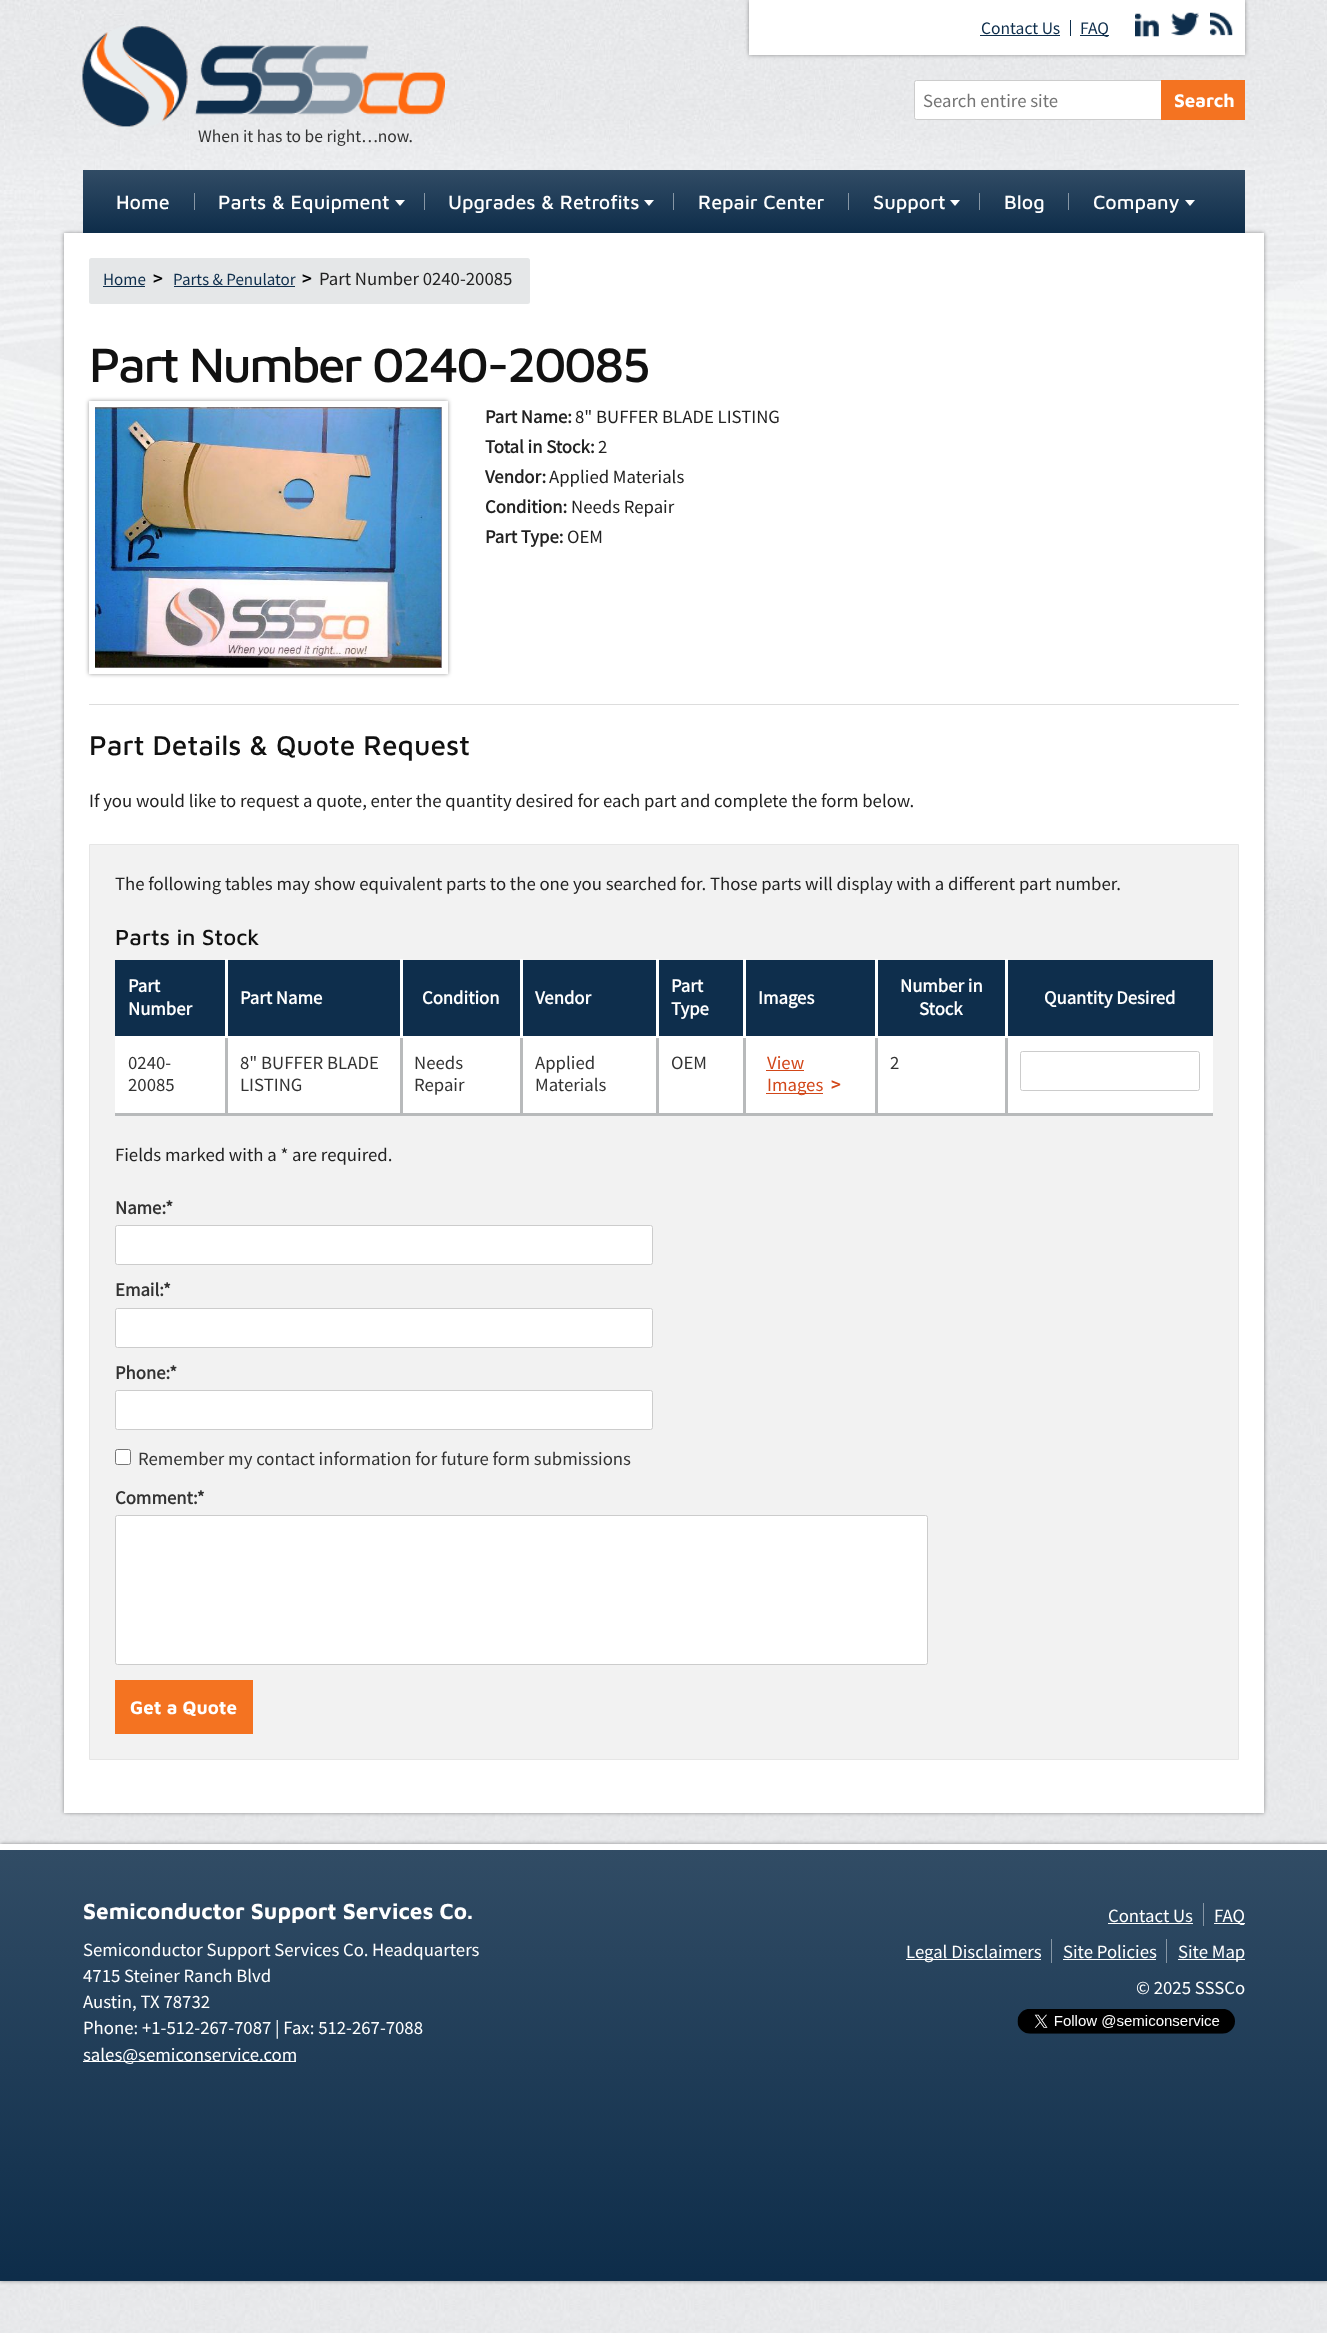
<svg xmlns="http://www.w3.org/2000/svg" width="1327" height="2333">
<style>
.a{font:17.5px Source Sans Pro;fill:#0e2e4c}
.b{font:18.75px Source Sans Pro;fill:#757575}
.c{font:bold 18.75px Maven Pro;fill:#fff}
.d{font:17.5px Source Sans Pro;fill:#333}
.e{font:500 19.75px Maven Pro;fill:#fff}
.f{font:17px Source Sans Pro;fill:#0e2e4c}
.g{font:bold 18.75px Source Sans Pro;fill:#000}
.h{font:18.75px Source Sans Pro;fill:#222}
.i{font:500 49.75px Maven Pro;letter-spacing:-2.5px;fill:#111}
.j{font:bold 18.75px Source Sans Pro;fill:#222}
.k{font:500 28.1px Maven Pro;fill:#111}
.l{font:500 22.5px Maven Pro;fill:#111}
.m{font:bold 18.75px Source Sans Pro;fill:#fff}
.n{font:18.75px Source Sans Pro;fill:#333}
.o{font:18.75px Source Sans Pro;fill:#d24719}
.p{font:bold 18.75px Source Sans Pro;fill:#d24719}
.q{font:bold 18.75px Source Sans Pro;fill:#333}
.r{font:bold 22.5px Maven Pro;fill:#fff}
.s{font:18.75px Source Sans Pro;fill:#fff}
</style>
<defs>
<linearGradient id="g1" gradientUnits="userSpaceOnUse" x1="664" y1="170" x2="664" y2="233"><stop offset="0" stop-color="#314c65"/><stop offset="0.99" stop-color="#0e2d4a"/></linearGradient>
<linearGradient id="g2" gradientUnits="userSpaceOnUse" x1="664" y1="1850" x2="664" y2="2281"><stop offset="0" stop-color="#314c65"/><stop offset="0.99" stop-color="#0e2d4a"/></linearGradient>
</defs>
<rect width="100%" height="100%" fill="#fff"/>
<image href="1.png" x="0" y="918" width="1327" height="1415"/>
<image href="2.png" x="0" y="0" width="1327" height="919"/>
<path fill="#00000066" filter="blur(2px)" d="M749 0h496v55H749z"/>
<path fill="#fff" d="M749 0h496v55H749z"/>
<path fill="#0e2e4c" d="M980 35h80v1H980z"/>
<path fill="#0e2e4c" d="M1070 20h1v16H1070z"/>
<path fill="#0e2e4c" d="M1080 35h29v1H1080z"/>
<image href="3.png" x="1135" y="13" width="24" height="24"/>
<image href="4.png" x="1171" y="12" width="28" height="24"/>
<image href="5.png" x="1210" y="12" width="23" height="24"/>
<rect fill="#fff" stroke="#ccc" x="914.5" y="80.5" width="249" height="39" rx="2"/>
<path fill="#f47321" d="M1161 80h84v40H1161z"/>
<image href="6.png" x="82" y="25" width="363" height="103"/>
<path fill="#00000066" filter="blur(2px)" d="M64 233h1200v1580H64z"/>
<path fill="url(#g1)" d="M83 170h1162v63H83z"/>
<path fill="#8696a5" d="M194 193h1v17H194z"/>
<path fill="#fff" d="M395 200h10l-5 6z"/>
<path fill="#8696a5" d="M424 193h1v17H424z"/>
<path fill="#fff" d="M644 200h10l-5 6z"/>
<path fill="#8696a5" d="M673 193h1v17H673z"/>
<path fill="#8696a5" d="M848 193h1v17H848z"/>
<path fill="#fff" d="M950 200h10l-5 6z"/>
<path fill="#8696a5" d="M979 193h1v17H979z"/>
<path fill="#8696a5" d="M1068 193h1v17H1068z"/>
<path fill="#fff" d="M1185 200h10l-5 6z"/>
<path fill="#fff" d="M64 233h1200v1580H64z"/>
<rect fill="#e5e7e8" x="89" y="258" width="441" height="46" rx="2.5"/>
<path fill="#0e2e4c" d="M103 286h42v1H103z"/>
<path fill="#0e2e4c" d="M174 286h121v1H174z"/>
<path fill="#00000066" filter="blur(2px)" d="M89 401h359v273H89z"/>
<path fill="none" stroke="#fff" stroke-width="6" d="M92 404h353v267H92z"/>
<image href="7.png" x="95" y="407" width="347" height="261"/>
<path fill="#ddd" d="M89 704h1150v1H89z"/>
<path fill="#f2f2f2" stroke="#e6e6e6" d="M89.5 844.5h1149v915H89.5z"/>
<rect fill="#fff" x="115" y="960" width="1098" height="155" rx="4"/>
<path fill="#b8babb" d="M115 1113h1098v3H115z"/>
<path fill="#0e2e4c" d="M115 960h110v76H115z"/>
<path fill="#b8babb" d="M225 1035h3v80H225z"/>
<path fill="#fff" d="M225 959h3v79H225z"/>
<path fill="#0e2e4c" d="M228 960h172v76H228z"/>
<path fill="#b8babb" d="M400 1035h3v80H400z"/>
<path fill="#fff" d="M400 959h3v79H400z"/>
<path fill="#0e2e4c" d="M403 960h117v76H403z"/>
<path fill="#b8babb" d="M520 1035h3v80H520z"/>
<path fill="#fff" d="M520 959h3v79H520z"/>
<path fill="#0e2e4c" d="M523 960h133v76H523z"/>
<path fill="#b8babb" d="M656 1035h3v80H656z"/>
<path fill="#fff" d="M656 959h3v79H656z"/>
<path fill="#0e2e4c" d="M659 960h84v76H659z"/>
<path fill="#b8babb" d="M743 1035h3v80H743z"/>
<path fill="#fff" d="M743 959h3v79H743z"/>
<path fill="#0e2e4c" d="M746 960h129v76H746z"/>
<path fill="#b8babb" d="M875 1035h3v80H875z"/>
<path fill="#fff" d="M875 959h3v79H875z"/>
<path fill="#0e2e4c" d="M878 960h127v76H878z"/>
<path fill="#b8babb" d="M1005 1035h3v80H1005z"/>
<path fill="#fff" d="M1005 959h3v79H1005z"/>
<path fill="#0e2e4c" d="M1008 960h205v76H1008z"/>
<path fill="#d24719" d="M766 1070h38v1H766z"/>
<path fill="#d24719" d="M766 1093h57v1H766z"/>
<rect fill="none" stroke="#ccc" x="1020.5" y="1051.5" width="179" height="39" rx="2"/>
<rect fill="#fff" stroke="#ccc" x="115.5" y="1225.5" width="537" height="39" rx="2"/>
<rect fill="#fff" stroke="#ccc" x="115.5" y="1308.5" width="537" height="39" rx="2"/>
<rect fill="#fff" stroke="#ccc" x="115.5" y="1390.5" width="537" height="39" rx="2"/>
<rect fill="#fff" stroke="#767676" x="115.5" y="1449.5" width="15" height="15" rx="2"/>
<rect fill="#fff" stroke="#ccc" x="115.5" y="1515.5" width="812" height="149" rx="2"/>
<path fill="#f47321" d="M115 1680h138v54H115z"/>
<path fill="#00000066" filter="blur(2px)" d="M0 1844h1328v437H0z"/>
<path fill="url(#g2)" d="M0 1850h1327v431H0z"/>
<path fill="#fff" d="M0 1844h1327v6H0z"/>
<path fill="#fff" d="M83 2061h213v1H83z"/>
<path fill="#8696a5" d="M1203 1903h1v23H1203z"/>
<path fill="#fff" d="M1108 1923h85v1H1108z"/>
<path fill="#fff" d="M1214 1923h31v1H1214z"/>
<path fill="#8696a5" d="M1051 1939h1v24H1051z"/>
<path fill="#fff" d="M906 1959h135v1H906z"/>
<path fill="#8696a5" d="M1166 1939h1v24H1166z"/>
<path fill="#fff" d="M1063 1959h93v1H1063z"/>
<path fill="#fff" d="M1178 1959h67v1H1178z"/>
<image href="8.png" x="1017" y="2009" width="218" height="25"/>
<text class="a" x="981" y="34">Contact Us</text>
<text class="a" x="1080" y="34">FAQ</text>
<text class="b" x="923" y="107">Search entire site</text>
<text class="c" x="1174" y="107">Search</text>
<text class="d" x="198" y="142">When it has to be right…now.</text>
<text class="e" x="116" y="209">Home</text>
<text class="e" x="218" y="209">Parts &amp; Equipment</text>
<text class="e" x="448" y="209">Upgrades &amp; Retrofits</text>
<text class="e" x="698" y="209">Repair Center</text>
<text class="e" x="873" y="209">Support</text>
<text class="e" x="1004" y="209">Blog</text>
<text class="e" x="1093" y="209">Company</text>
<text class="f" x="103" y="285">Home</text>
<text class="g" x="153" y="285">&gt;</text>
<text class="f" x="173" y="285">Parts &amp; Penulator</text>
<text class="g" x="302" y="285">&gt;</text>
<text class="h" x="319" y="285">Part Number 0240-20085</text>
<text class="i" x="89" y="382">Part Number 0240-20085</text>
<text class="j" x="485" y="423">Part Name:</text>
<text class="h" x="575" y="423">8" BUFFER BLADE LISTING</text>
<text class="j" x="485" y="453">Total in Stock:</text>
<text class="h" x="598" y="453">2</text>
<text class="j" x="485" y="483">Vendor:</text>
<text class="h" x="549" y="483">Applied Materials</text>
<text class="j" x="485" y="513">Condition:</text>
<text class="h" x="571" y="513">Needs Repair</text>
<text class="j" x="485" y="543">Part Type:</text>
<text class="h" x="567" y="543">OEM</text>
<text class="k" x="89" y="755">Part Details &amp; Quote Request</text>
<text class="h" x="89" y="807">If you would like to request a quote, enter the quantity desired for each part and complete the form below.</text>
<text class="h" x="115" y="890">The following tables may show equivalent parts to the one you searched for. Those parts will display with a different part number.</text>
<text class="l" x="115" y="945">Parts in Stock</text>
<text class="m" x="128" y="992">Part</text>
<text class="m" x="128" y="1015">Number</text>
<text class="m" x="240" y="1004">Part Name</text>
<text class="m" x="422" y="1004">Condition</text>
<text class="m" x="535" y="1004">Vendor</text>
<text class="m" x="671" y="992">Part</text>
<text class="m" x="671" y="1015">Type</text>
<text class="m" x="758" y="1004">Images</text>
<text class="m" x="900" y="992">Number in</text>
<text class="m" x="919" y="1015">Stock</text>
<text class="m" x="1044" y="1004">Quantity Desired</text>
<text class="n" x="128" y="1069">0240-</text>
<text class="n" x="128" y="1091">20085</text>
<text class="n" x="240" y="1069">8" BUFFER BLADE</text>
<text class="n" x="240" y="1091">LISTING</text>
<text class="n" x="414" y="1069">Needs</text>
<text class="n" x="414" y="1091">Repair</text>
<text class="n" x="535" y="1069">Applied</text>
<text class="n" x="535" y="1091">Materials</text>
<text class="n" x="671" y="1069">OEM</text>
<text class="o" x="767" y="1069">View</text>
<text class="o" x="767" y="1091">Images</text>
<text class="p" x="831" y="1091">&gt;</text>
<text class="n" x="890" y="1069">2</text>
<text class="h" x="115" y="1161">Fields marked with a * are required.</text>
<text class="q" x="115" y="1214">Name:*</text>
<text class="q" x="115" y="1296">Email:*</text>
<text class="q" x="115" y="1379">Phone:*</text>
<text class="n" x="138" y="1465">Remember my contact information for future form submissions</text>
<text class="q" x="115" y="1504">Comment:*</text>
<text class="c" x="130" y="1714">Get a Quote</text>
<text class="r" x="83" y="1919">Semiconductor Support Services Co.</text>
<text class="s" x="83" y="1956">Semiconductor Support Services Co. Headquarters</text>
<text class="s" x="83" y="1982">4715 Steiner Ranch Blvd</text>
<text class="s" x="83" y="2008">Austin, TX 78732</text>
<text class="s" x="83" y="2034">Phone: +1-512-267-7087 | Fax: 512-267-7088</text>
<text class="s" x="83" y="2061">sales@semiconservice.com</text>
<text class="s" x="1108" y="1922">Contact Us</text>
<text class="s" x="1214" y="1922">FAQ</text>
<text class="s" x="906" y="1958">Legal Disclaimers</text>
<text class="s" x="1063" y="1958">Site Policies</text>
<text class="s" x="1178" y="1958">Site Map</text>
<text class="s" x="1136" y="1994">© 2025 SSSCo</text>
</svg>
